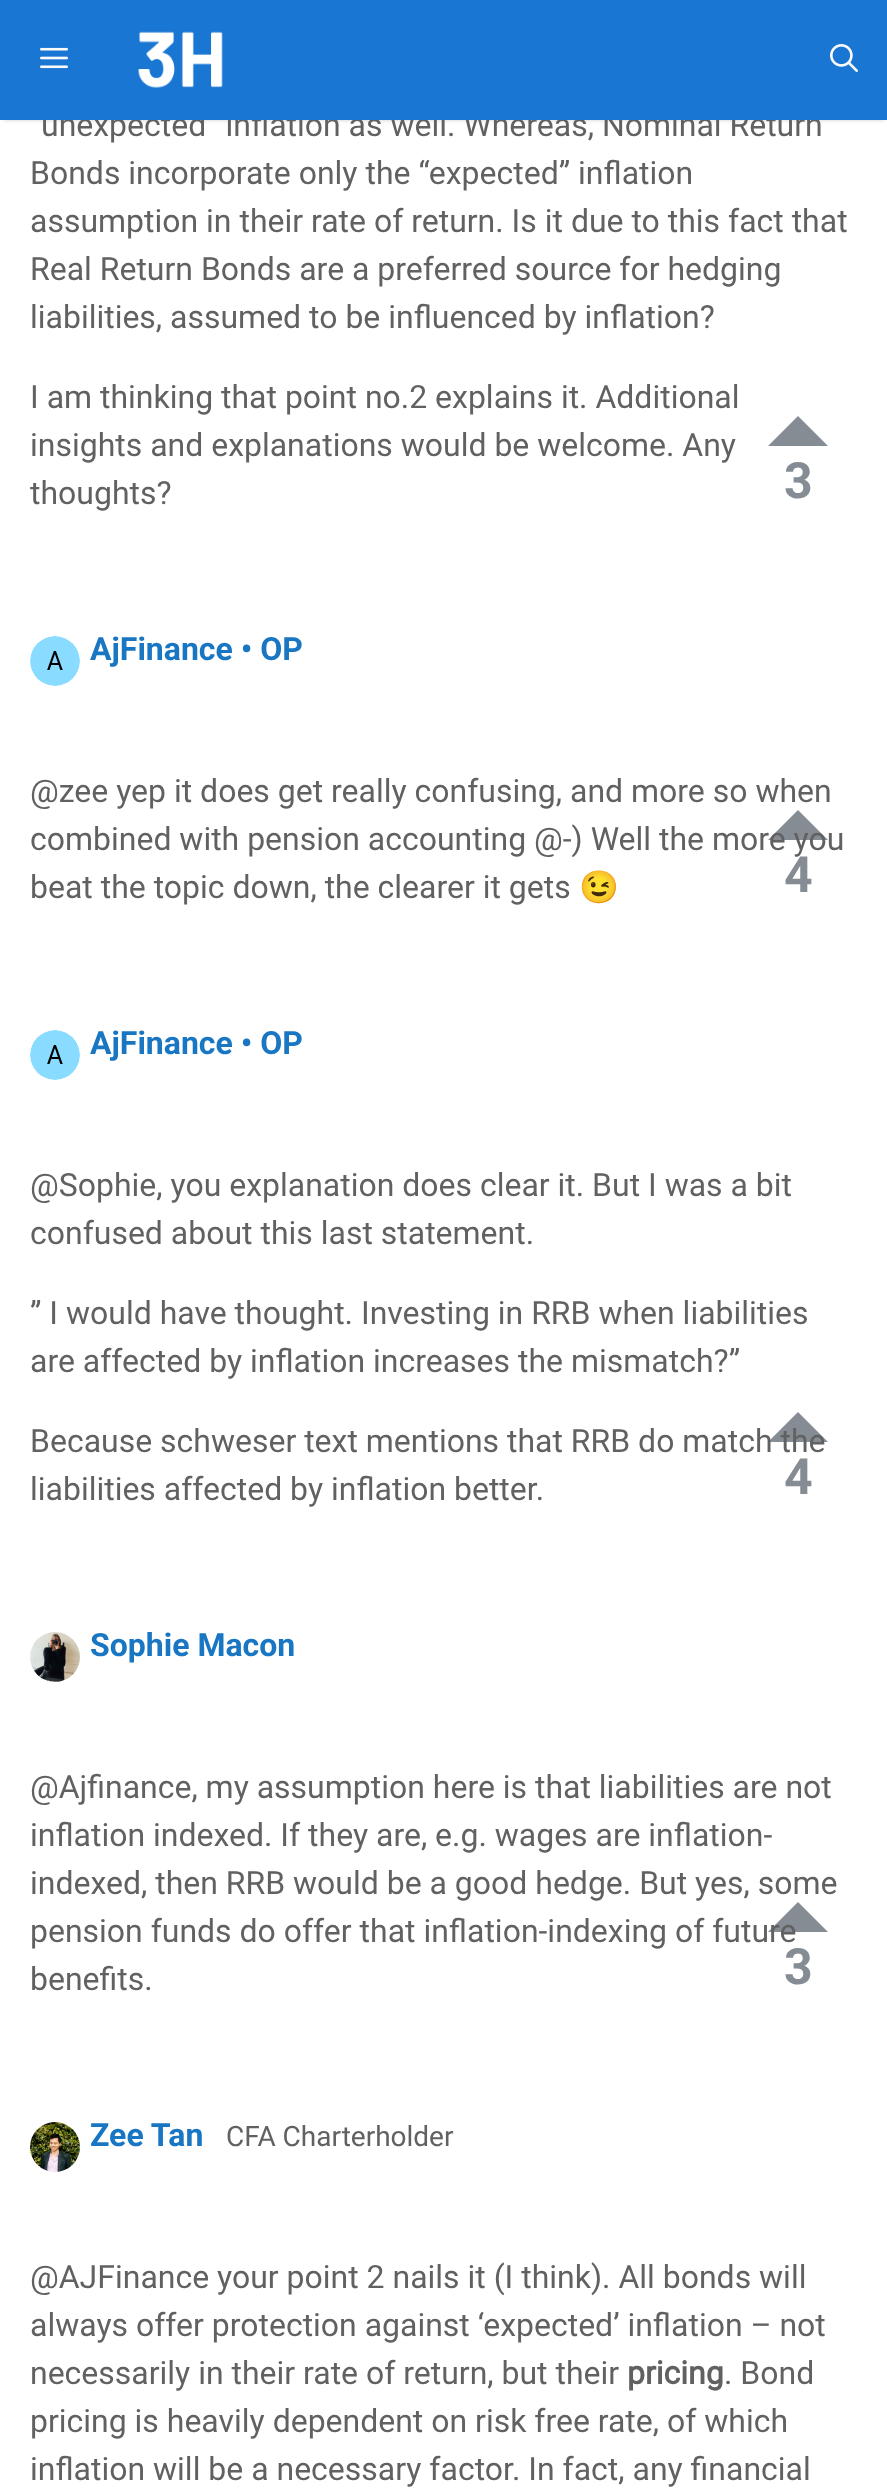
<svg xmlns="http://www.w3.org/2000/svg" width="887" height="2492">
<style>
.a{font:32px Roboto;fill:#616161}
.b{font:bold 50px Roboto;fill:#858c93}
.c{font:bold 32px Roboto;fill:#1976c2}
.d{font:32px Noto Color Emoji;fill:#616161}
.e{font:28px 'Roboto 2';fill:#616161}
.f{font:bold 32px 'Roboto 2';fill:#616161}
</style>
<rect width="100%" height="100%" fill="#fff"/>
<path fill="#00000033" filter="blur(2px)" d="M4 8h880v112H4z"/>
<path fill="#858c93" d="M828 446h-60l30-30z"/>
<image href="4.png" x="30" y="636" width="50" height="50"/>
<path fill="#858c93" d="M828 840h-60l30-30z"/>
<image href="4.png" x="30" y="1030" width="50" height="50"/>
<path fill="#858c93" d="M828 1442h-60l30-30z"/>
<image href="5.png" x="30" y="1632" width="50" height="50"/>
<path fill="#858c93" d="M828 1932h-60l30-30z"/>
<image href="6.png" x="30" y="2122" width="50" height="50"/>
<text class="a" x="41" y="136">unexpected” inflation as well. Whereas, Nominal Return</text>
<path fill="#1976d2" d="M0 0h887v120H0z"/>
<image href="3.png" x="830" y="44" width="28" height="28"/>
<image href="1.png" x="40" y="47" width="28" height="22"/>
<image href="2.png" x="138" y="31" width="85" height="58"/>
<text class="a" x="30" y="184">Bonds incorporate only the “expected” inflation</text>
<text class="a" x="30" y="232">assumption in their rate of return. Is it due to this fact that</text>
<text class="a" x="30" y="280">Real Return Bonds are a preferred source for hedging</text>
<text class="a" x="30" y="328">liabilities, assumed to be influenced by inflation?</text>
<text class="a" x="30" y="408">I am thinking that point no.2 explains it. Additional</text>
<text class="a" x="30" y="456">insights and explanations would be welcome. Any</text>
<text class="a" x="30" y="504">thoughts?</text>
<text class="b" x="784" y="498">3</text>
<text class="c" x="90" y="660">AjFinance • OP</text>
<text class="a" x="30" y="802">@zee yep it does get really confusing, and more so when</text>
<text class="a" x="30" y="850">combined with pension accounting @-) Well the more you</text>
<text class="a" x="30" y="898">beat the topic down, the clearer it gets</text>
<text class="d" x="579" y="898">😉</text>
<text class="b" x="784" y="892">4</text>
<text class="c" x="90" y="1054">AjFinance • OP</text>
<text class="a" x="30" y="1196">@Sophie, you explanation does clear it. But I was a bit</text>
<text class="a" x="30" y="1244">confused about this last statement.</text>
<text class="a" x="30" y="1324">” I would have thought. Investing in RRB when liabilities</text>
<text class="a" x="30" y="1372">are affected by inflation increases the mismatch?”</text>
<text class="a" x="30" y="1452">Because schweser text mentions that RRB do match the</text>
<text class="a" x="30" y="1500">liabilities affected by inflation better.</text>
<text class="b" x="784" y="1494">4</text>
<text class="c" x="90" y="1656">Sophie Macon</text>
<text class="a" x="30" y="1798">@Ajfinance, my assumption here is that liabilities are not</text>
<text class="a" x="30" y="1846">inflation indexed. If they are, e.g. wages are inflation-</text>
<text class="a" x="30" y="1894">indexed, then RRB would be a good hedge. But yes, some</text>
<text class="a" x="30" y="1942">pension funds do offer that inflation-indexing of future</text>
<text class="a" x="30" y="1990">benefits.</text>
<text class="b" x="784" y="1984">3</text>
<text class="c" x="90" y="2146">Zee Tan</text>
<text class="e" x="226" y="2146">CFA Charterholder</text>
<text class="a" x="30" y="2288">@AJFinance your point 2 nails it (I think). All bonds will</text>
<text class="a" x="30" y="2336">always offer protection against ‘expected’ inflation – not</text>
<text class="a" x="30" y="2384">necessarily in their rate of return, but their</text>
<text class="f" x="627" y="2384">pricing</text>
<text class="a" x="724" y="2384">. Bond</text>
<text class="a" x="30" y="2432">pricing is heavily dependent on risk free rate, of which</text>
<text class="a" x="30" y="2480">inflation will be a necessary factor. In fact, any financial</text>
</svg>
